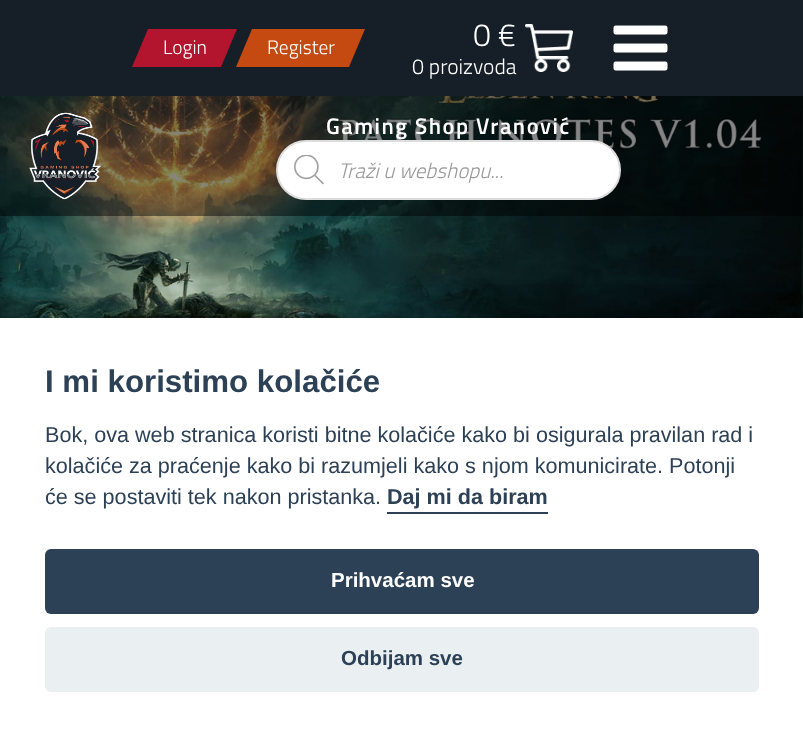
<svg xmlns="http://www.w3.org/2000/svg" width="803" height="736">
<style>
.a{font:300 19.5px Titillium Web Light;fill:#fff}
.b{font:300 32px Titillium Web Light;fill:#fff}
.c{font:300 21.6px Titillium Web Light;fill:#fff}
.d{font:600 22.5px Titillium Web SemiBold;letter-spacing:1.5px;fill:#fff}
.e{font:italic 300 21px Titillium Web Light;fill:#999}
.f{font:bold 31.25px Liberation Sans;fill:#2d4156}
.g{font:21.6px Liberation Sans;fill:#2d4156}
.h{font:bold 21.6px Liberation Sans;fill:#2d4156}
.i{font:bold 20.5px Liberation Sans;fill:#fff}
.j{font:bold 20.5px Liberation Sans;fill:#2d4156}
</style>
<rect width="100%" height="100%" fill="#161f28"/>
<path fill="#b2152d" d="M148 29h89l-16 38h-89z"/>
<path fill="#c44a12" d="M252 29h113l-16 38h-113z"/>
<image href="1.png" x="525" y="24" width="48" height="48"/>
<image href="2.png" x="613" y="25" width="55" height="46"/>
<image href="3.png" x="0" y="96" width="803" height="222"/>
<path fill="#01010178" d="M0 96h803v120H0z"/>
<image href="4.png" x="29" y="112" width="73" height="88"/>
<rect fill="#fff" stroke="#ddd" stroke-width="2" x="277" y="141" width="343" height="58" rx="29"/>
<image href="5.png" x="294" y="155" width="30" height="30"/>
<path fill="#02020347" filter="blur(22.5px)" d="M0 333h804v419H0z"/>
<path fill="#fff" d="M0 318h803v418H0z"/>
<path fill="#2d4156" d="M387 512h161v2H387z"/>
<rect fill="#2d4156" x="45" y="549" width="714" height="65" rx="6"/>
<rect fill="#eaeff2" x="45" y="627" width="714" height="65" rx="6"/>
<text class="a" x="163" y="54">Login</text>
<text class="a" x="267" y="54">Register</text>
<text class="b" x="473" y="46">0 €</text>
<text class="c" x="412" y="74">0 proizvoda</text>
<text class="d" x="326" y="134">Gaming Shop Vranović</text>
<text class="e" x="338" y="178">Traži u webshopu...</text>
<text class="f" x="45" y="392">I mi koristimo kolačiće</text>
<text class="g" x="45" y="442">Bok, ova web stranica koristi bitne kolačiće kako bi osigurala pravilan rad i</text>
<text class="g" x="45" y="473">kolačiće za praćenje kako bi razumjeli kako s njom komunicirate. Potonji</text>
<text class="g" x="45" y="504">će se postaviti tek nakon pristanka.</text>
<text class="h" x="387" y="504">Daj mi da biram</text>
<text class="i" x="331" y="587">Prihvaćam sve</text>
<text class="j" x="341" y="665">Odbijam sve</text>
</svg>
